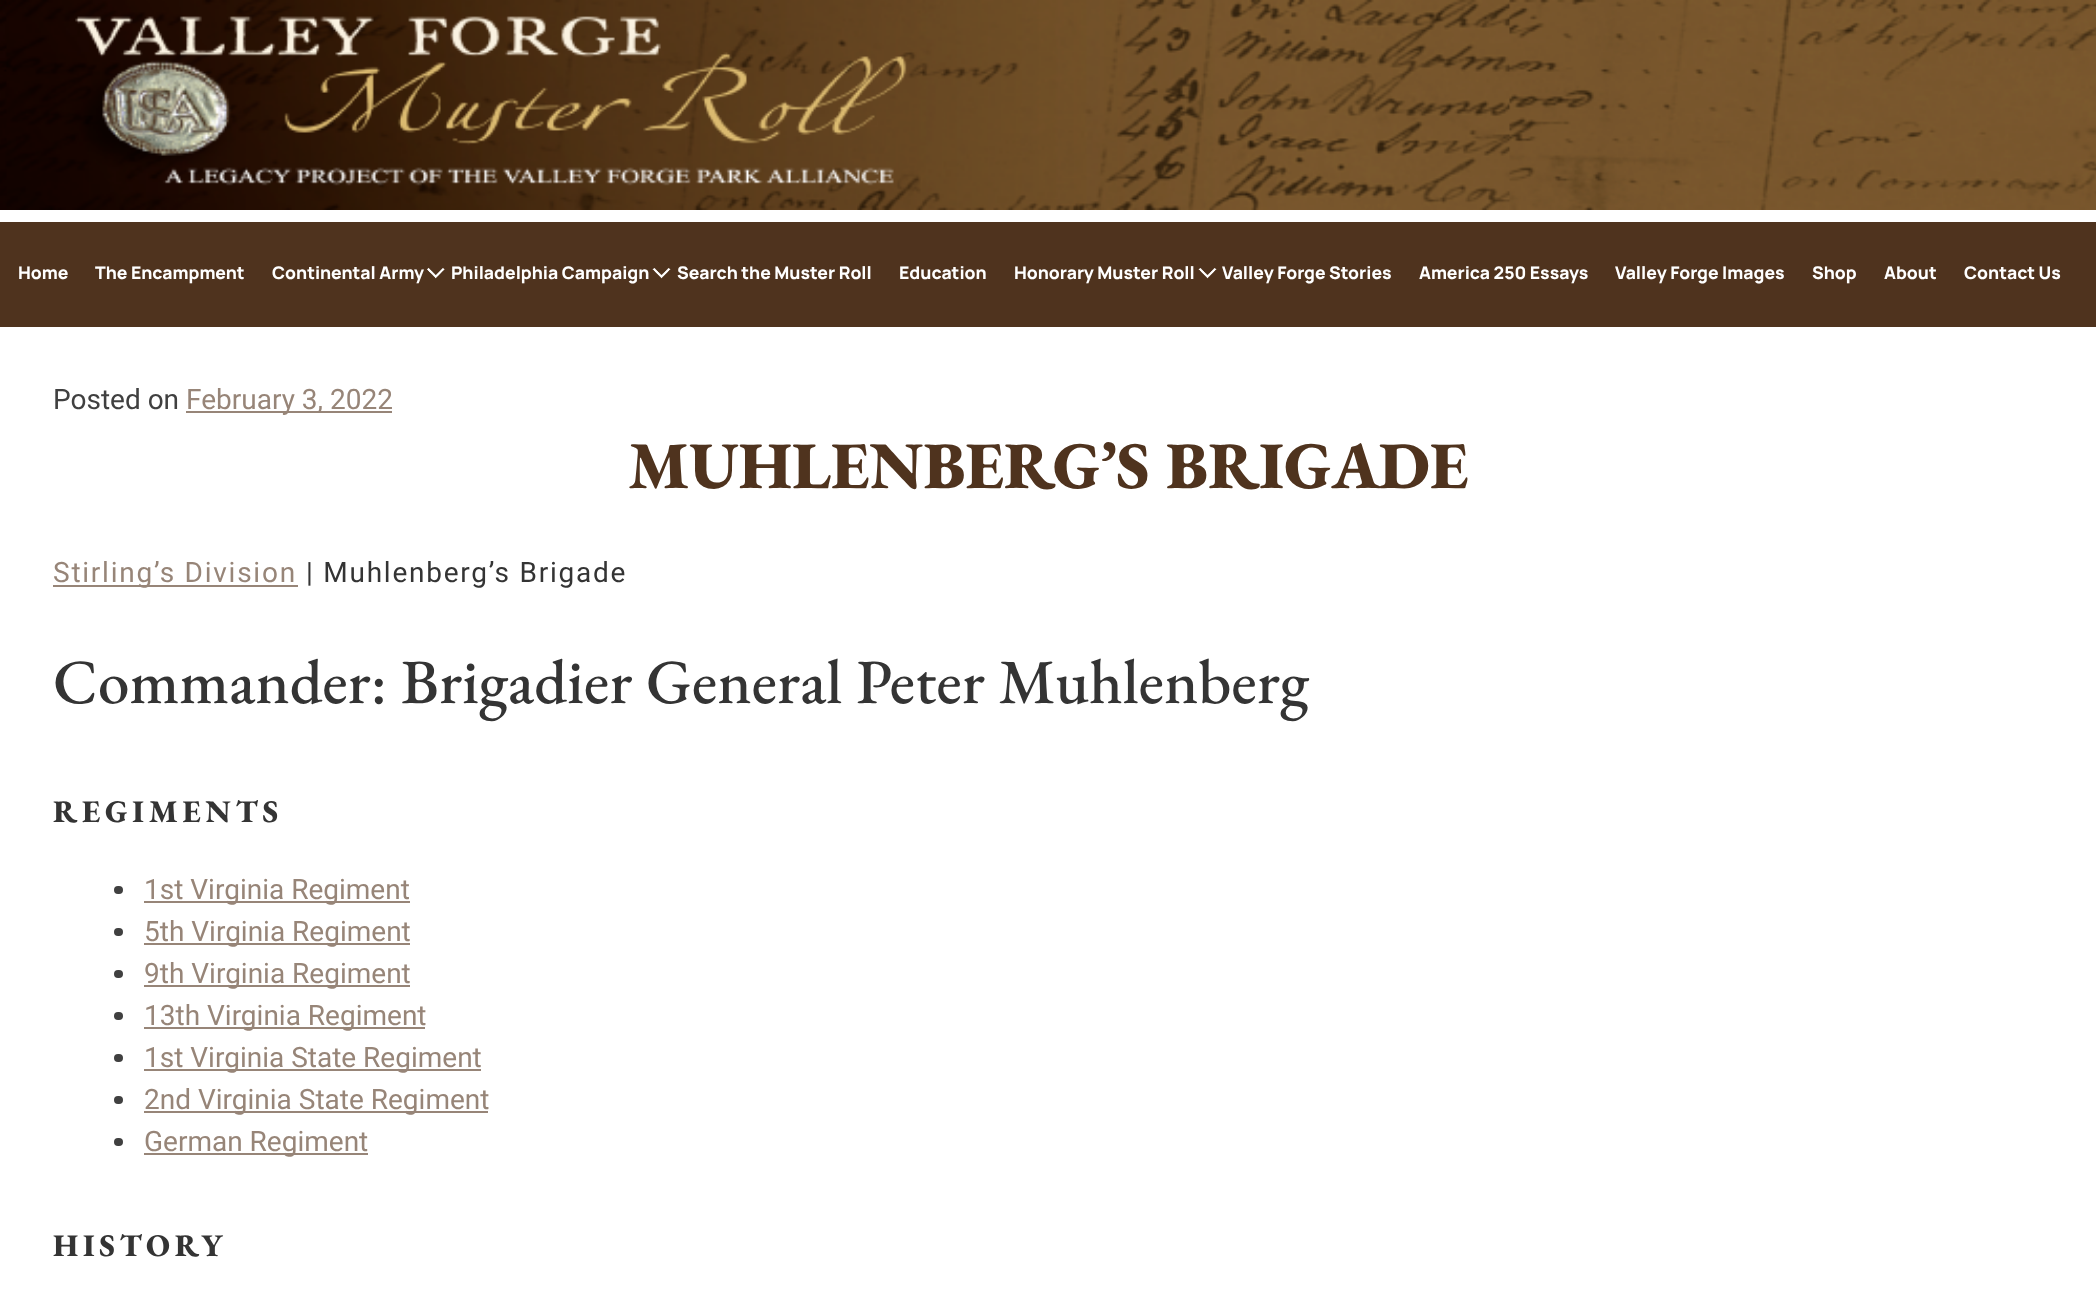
<svg xmlns="http://www.w3.org/2000/svg" width="2096" height="1289">
<style>
.a{font:800 17.5px Manrope;fill:#fff}
.b{font:28px Roboto;fill:#404040}
.c{font:28px Roboto;fill:#978578}
.d{font:800 66.5px EB Garamond;fill:#4f331e}
.e{font:28px Roboto;letter-spacing:1.75px;fill:#978578}
.f{font:28px Roboto;letter-spacing:1.75px;fill:#343434}
.g{font:500 63px EB Garamond;letter-spacing:0.2px;fill:#343434}
.h{font:800 31.5px EB Garamond;letter-spacing:4.75px;fill:#343434}
</style>
<rect width="100%" height="100%" fill="#fff"/>
<image href="1.png" x="0" y="0" width="2096" height="210"/>
<path fill="#4f331e" d="M0 222h2096v105H0z"/>
<image href="2.png" x="427" y="267" width="18" height="12"/>
<image href="3.png" x="652" y="268" width="19" height="11"/>
<image href="3.png" x="1198" y="268" width="19" height="11"/>
<path fill="#978578" d="M186 411h206v2H186z"/>
<path fill="#978578" d="M53 585h245v2H53z"/>
<rect fill="#404040" x="114" y="886" width="9" height="8" rx="4"/>
<path fill="#978578" d="M144 901h266v2H144z"/>
<rect fill="#404040" x="114" y="928" width="9" height="8" rx="4"/>
<path fill="#978578" d="M144 943h266v2H144z"/>
<rect fill="#404040" x="114" y="970" width="9" height="8" rx="4"/>
<path fill="#978578" d="M144 985h266v2H144z"/>
<rect fill="#404040" x="114" y="1012" width="9" height="8" rx="4"/>
<path fill="#978578" d="M144 1027h281v2H144z"/>
<rect fill="#404040" x="114" y="1054" width="9" height="8" rx="4"/>
<path fill="#978578" d="M144 1069h337v2H144z"/>
<rect fill="#404040" x="114" y="1096" width="9" height="8" rx="4"/>
<path fill="#978578" d="M144 1111h344v2H144z"/>
<rect fill="#404040" x="114" y="1138" width="9" height="8" rx="4"/>
<path fill="#978578" d="M144 1153h224v2H144z"/>
<text class="a" x="18" y="279">Home</text>
<text class="a" x="95" y="279">The Encampment</text>
<text class="a" x="272" y="279">Continental Army</text>
<text class="a" x="451" y="279">Philadelphia Campaign</text>
<text class="a" x="677" y="279">Search the Muster Roll</text>
<text class="a" x="899" y="279">Education</text>
<text class="a" x="1014" y="279">Honorary Muster Roll</text>
<text class="a" x="1222" y="279">Valley Forge Stories</text>
<text class="a" x="1419" y="279">America 250 Essays</text>
<text class="a" x="1615" y="279">Valley Forge Images</text>
<text class="a" x="1812" y="279">Shop</text>
<text class="a" x="1884" y="279">About</text>
<text class="a" x="1964" y="279">Contact Us</text>
<text class="b" x="53" y="409">Posted on</text>
<text class="c" x="186" y="409">February 3, 2022</text>
<text class="d" x="628" y="488">MUHLENBERG’S BRIGADE</text>
<text class="e" x="53" y="582">Stirling’s Division</text>
<text class="f" x="306" y="582">| Muhlenberg’s Brigade</text>
<text class="g" x="53" y="703">Commander: Brigadier General Peter Muhlenberg</text>
<text class="h" x="53" y="822">REGIMENTS</text>
<text class="c" x="144" y="899">1st Virginia Regiment</text>
<text class="c" x="144" y="941">5th Virginia Regiment</text>
<text class="c" x="144" y="983">9th Virginia Regiment</text>
<text class="c" x="144" y="1025">13th Virginia Regiment</text>
<text class="c" x="144" y="1067">1st Virginia State Regiment</text>
<text class="c" x="144" y="1109">2nd Virginia State Regiment</text>
<text class="c" x="144" y="1151">German Regiment</text>
<text class="h" x="53" y="1256">HISTORY</text>
</svg>
